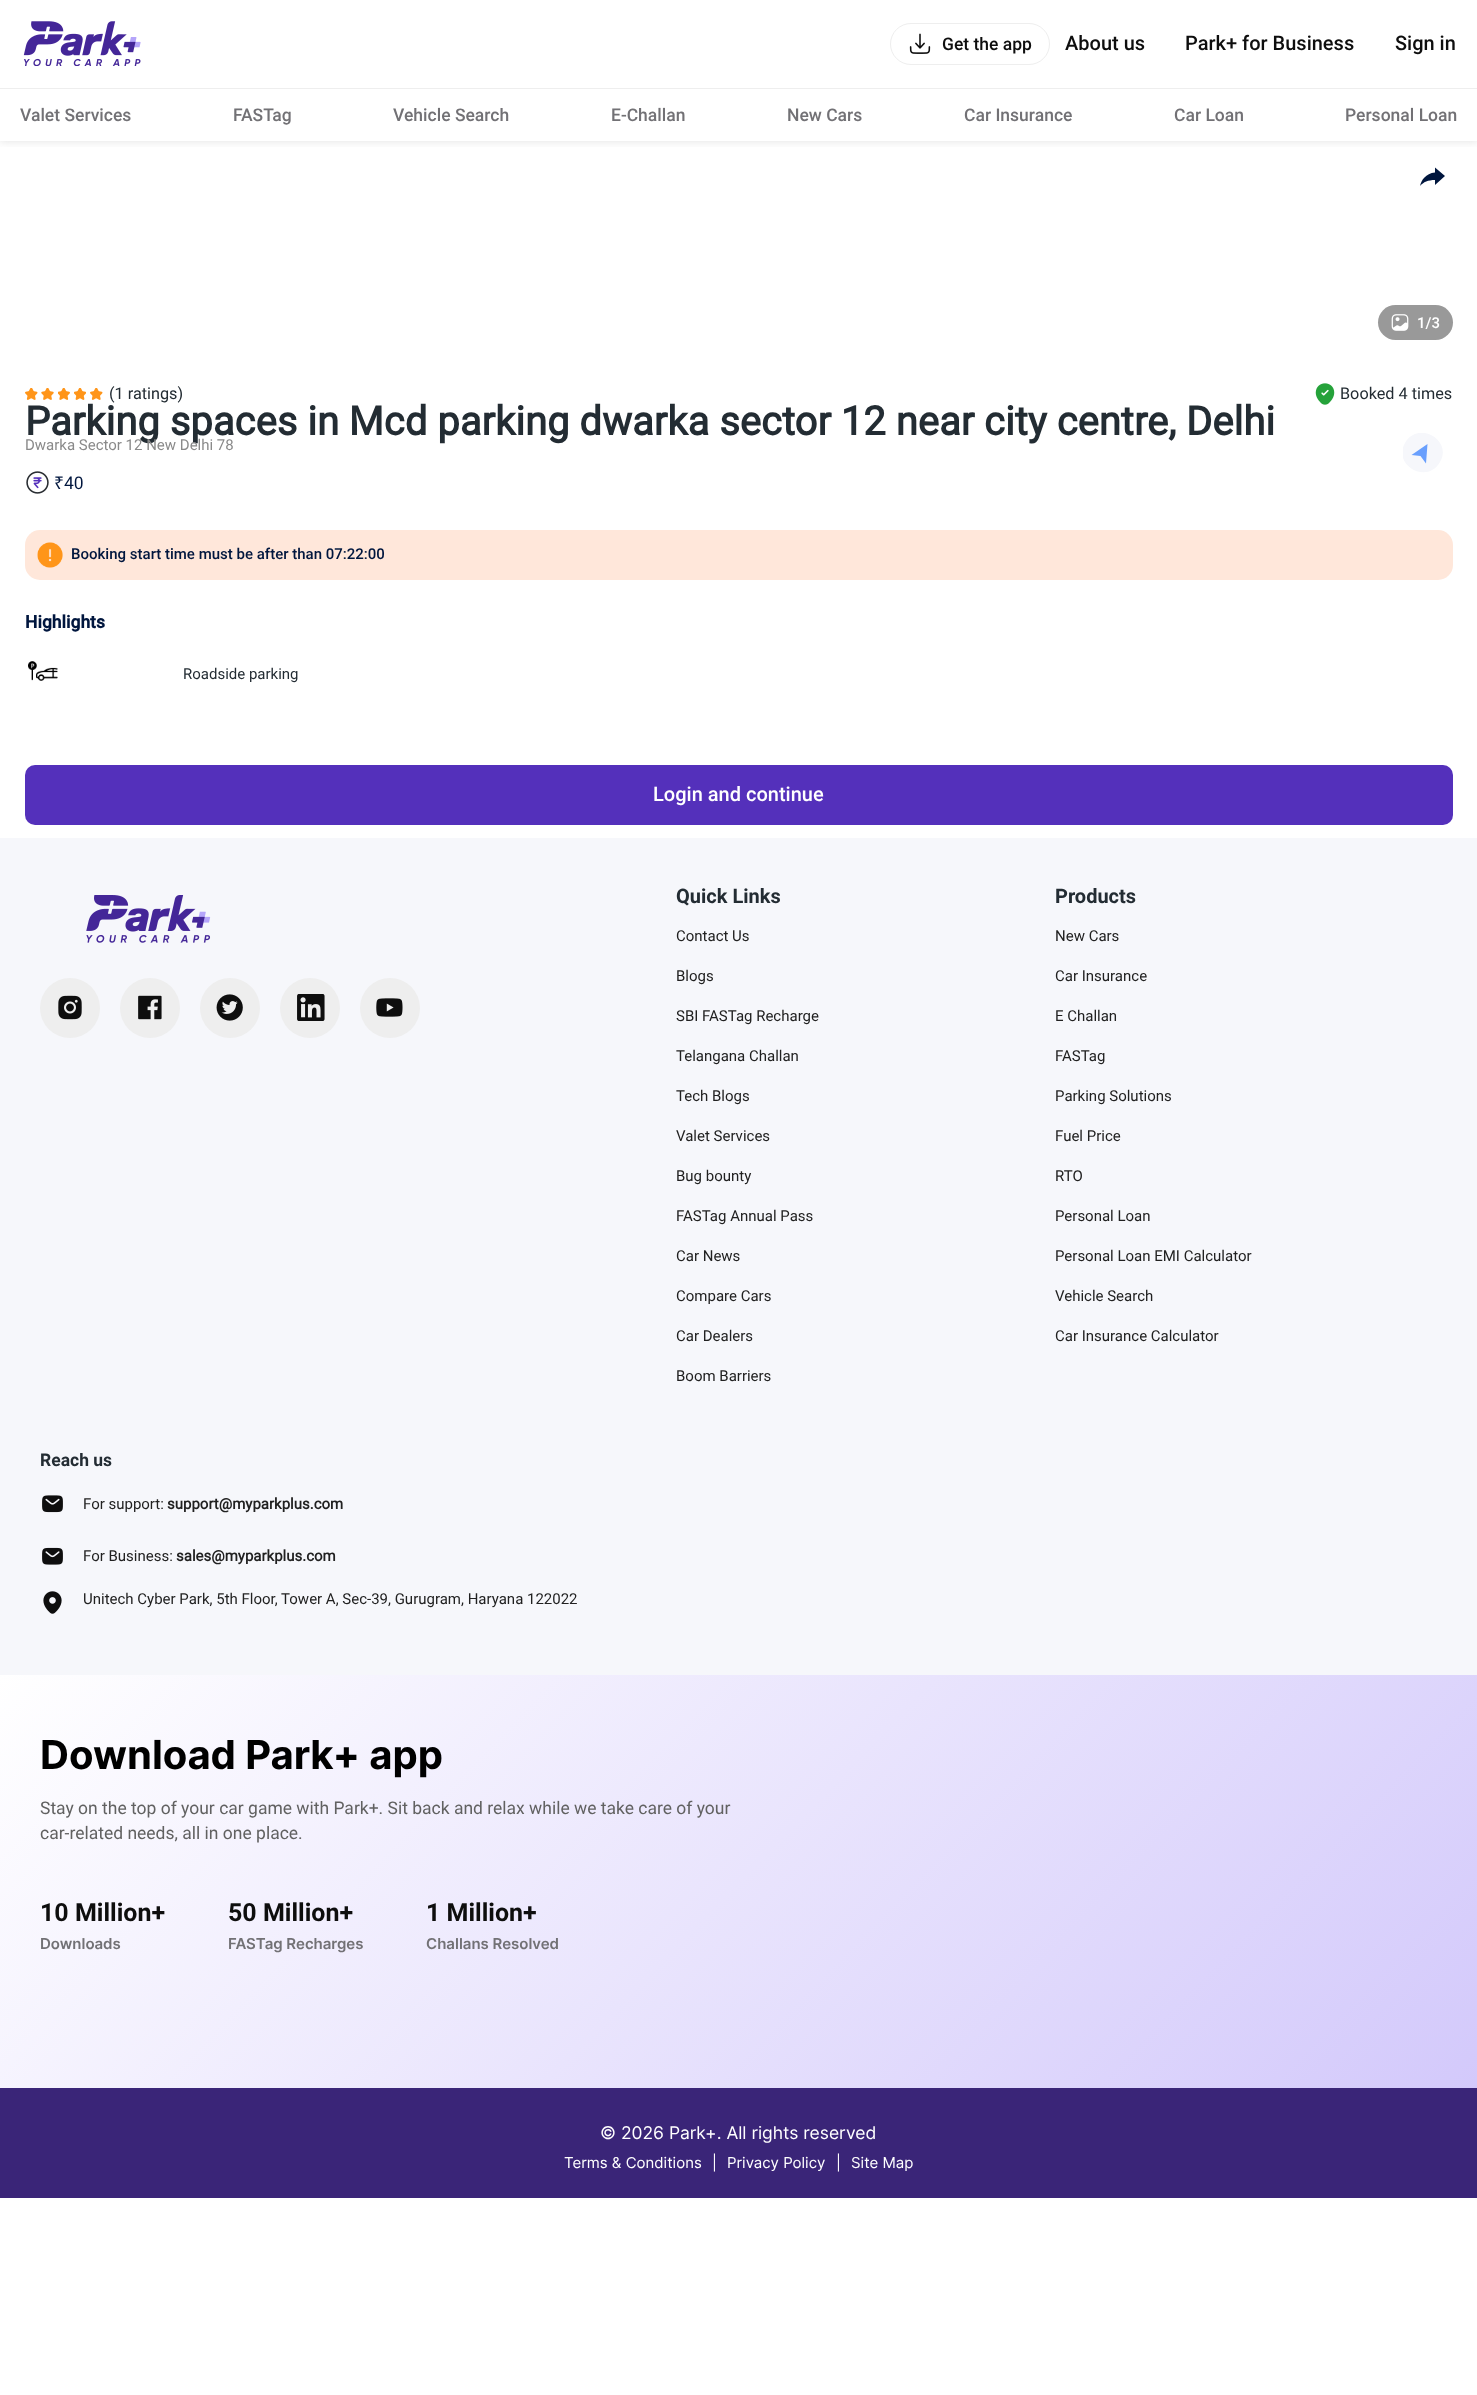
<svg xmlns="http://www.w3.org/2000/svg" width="1477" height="2395">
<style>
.a{font:500 17.5px Roboto;fill:#0e0e0e}
.b{font:500 20px Roboto;fill:#0e0e0e}
.c{font:500 17.5px Roboto;fill:#727175}
.d{font:500 15px Roboto;fill:#fff}
.e{font:16.25px Roboto;fill:#232c33}
.f{font:bold 40px Roboto;fill:#232c33}
.g{font:15px Roboto;fill:#8a8a8a}
.h{font:17.5px Noto Sans;fill:#00163e}
.i{font:17.5px Roboto;fill:#00163e}
.j{font:500 15px Roboto;fill:#00163e}
.k{font:bold 17.5px 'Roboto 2';fill:#00163e}
.l{font:15px Roboto;fill:#232c33}
.m{font:500 20px Roboto;fill:#fff}
.n{font:bold 20px 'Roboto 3';fill:#232c33}
.o{font:15px Roboto;fill:#212121}
.p{font:bold 17.5px 'Roboto 3';fill:#232c33}
.q{font:bold 15px Roboto;fill:#212121}
.r{font:bold 40px Inter;fill:#000}
.s{font:17.5px Roboto;fill:#616161}
.t{font:bold 25px 'Roboto 3';fill:#0e0e0e}
.u{font:600 15px Inter;fill:#727175}
.v{font:17.5px Inter;fill:#fff}
.w{font:15px Inter;fill:#fff}
</style>
<defs>
<clipPath id="clip1"><path d="M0 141h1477v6H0z"/></clipPath>
<clipPath id="clip2"><path d="M1403 433h40v40H1403z"/></clipPath>
<linearGradient id="g1" gradientUnits="userSpaceOnUse" x1="253" y1="1413" x2="1224" y2="2350"><stop offset="0" stop-color="#fff"/><stop offset="1" stop-color="#d3c9fb"/></linearGradient>
</defs>
<rect width="100%" height="100%" fill="#fff"/>
<g clip-path="url(#clip1)">
<path fill="#63636333" filter="blur(5px)" d="M0 0h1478v141H0z"/>
</g>
<path fill="#eee" d="M0 88h1477v1H0z"/>
<image href="1.png" x="23" y="21" width="118" height="45"/>
<rect fill="none" stroke="#eee" x="890.5" y="23.5" width="159" height="41" rx="20.5"/>
<image href="2.png" x="909" y="33" width="22" height="21"/>
<path fill="#00163e" d="M1435 180v5l10-9l-10-8.5v5c-9.5 1-13.5 7.5-15 13.5c3.5-4 8-6 15-6z"/>
<rect fill="#999" x="1378" y="305" width="75" height="35" rx="17.5"/>
<image href="3.png" x="1391" y="314" width="18" height="17"/>
<image href="4.png" x="25" y="388" width="13" height="12"/>
<image href="5.png" x="41" y="388" width="13" height="12"/>
<image href="6.png" x="58" y="388" width="12" height="12"/>
<image href="7.png" x="74" y="388" width="12" height="12"/>
<image href="4.png" x="90" y="388" width="13" height="12"/>
<image href="8.png" x="1315" y="383" width="20" height="22"/>
<image href="9.png" x="26" y="471" width="23" height="23"/>
<g clip-path="url(#clip2)">
<path fill="#f6f7fb" d="M1405 443c13-23 48-3 35 19c-13 23-48 3-35-19z"/>
</g>
<path fill="#699ffd" d="M1420.5 456l-9-1l16-11l-1.5 19.5z"/>
<rect fill="#ffe7da" x="25" y="530" width="1428" height="50" rx="15"/>
<image href="10.png" x="37" y="542" width="26" height="26"/>
<image href="11.png" x="28" y="661" width="30" height="20"/>
<rect fill="#5430bb" x="25" y="765" width="1428" height="60" rx="10"/>
<path fill="#f6f7fb" d="M0 838h1477v837H0z"/>
<image href="12.png" x="86" y="895" width="125" height="48"/>
<circle fill="#eee" cx="70" cy="1008" r="30"/>
<image href="13.png" x="58" y="995" width="24" height="25"/>
<circle fill="#eee" cx="150" cy="1008" r="30"/>
<image href="14.png" x="138" y="995" width="24" height="25"/>
<circle fill="#eee" cx="230" cy="1008" r="30"/>
<image href="15.png" x="216" y="994" width="27" height="27"/>
<circle fill="#eee" cx="310" cy="1008" r="30"/>
<image href="16.png" x="297" y="994" width="28" height="27"/>
<circle fill="#eee" cx="390" cy="1008" r="30"/>
<image href="17.png" x="376" y="998" width="27" height="19"/>
<image href="18.png" x="42" y="1495" width="21" height="18"/>
<image href="19.png" x="42" y="1547" width="21" height="18"/>
<image href="20.png" x="43" y="1591" width="19" height="23"/>
<path fill="url(#g1)" d="M0 1675h1477v413H0z"/>
<path fill="#3a2578" d="M0 2088h1477v110H0z"/>
<text class="a" x="942" y="50">Get the app</text>
<text class="b" x="1065" y="50">About us</text>
<text class="b" x="1185" y="50">Park+ for Business</text>
<text class="b" x="1395" y="50">Sign in</text>
<text class="c" x="20" y="121">Valet Services</text>
<text class="c" x="233" y="121">FASTag</text>
<text class="c" x="393" y="121">Vehicle Search</text>
<text class="c" x="611" y="121">E-Challan</text>
<text class="c" x="787" y="121">New Cars</text>
<text class="c" x="964" y="121">Car Insurance</text>
<text class="c" x="1174" y="121">Car Loan</text>
<text class="c" x="1345" y="121">Personal Loan</text>
<text class="d" x="1417" y="328">1/3</text>
<text class="e" x="109" y="399">(1 ratings)</text>
<text class="e" x="1340" y="399">Booked 4 times</text>
<text class="f" x="25" y="435">Parking spaces in Mcd parking dwarka sector 12 near city centre, Delhi</text>
<text class="g" x="25" y="450">Dwarka Sector 12 New Delhi 78</text>
<text class="h" x="54" y="489">₹</text>
<text class="i" x="64" y="489">40</text>
<text class="j" x="71" y="559">Booking start time must be after than 07:22:00</text>
<text class="k" x="25" y="628">Highlights</text>
<text class="l" x="183" y="679">Roadside parking</text>
<text class="m" x="653" y="801">Login and continue</text>
<text class="n" x="676" y="903">Quick Links</text>
<text class="o" x="676" y="941">Contact Us</text>
<text class="o" x="676" y="981">Blogs</text>
<text class="o" x="676" y="1021">SBI FASTag Recharge</text>
<text class="o" x="676" y="1061">Telangana Challan</text>
<text class="o" x="676" y="1101">Tech Blogs</text>
<text class="o" x="676" y="1141">Valet Services</text>
<text class="o" x="676" y="1181">Bug bounty</text>
<text class="o" x="676" y="1221">FASTag Annual Pass</text>
<text class="o" x="676" y="1261">Car News</text>
<text class="o" x="676" y="1301">Compare Cars</text>
<text class="o" x="676" y="1341">Car Dealers</text>
<text class="o" x="676" y="1381">Boom Barriers</text>
<text class="n" x="1055" y="903">Products</text>
<text class="o" x="1055" y="941">New Cars</text>
<text class="o" x="1055" y="981">Car Insurance</text>
<text class="o" x="1055" y="1021">E Challan</text>
<text class="o" x="1055" y="1061">FASTag</text>
<text class="o" x="1055" y="1101">Parking Solutions</text>
<text class="o" x="1055" y="1141">Fuel Price</text>
<text class="o" x="1055" y="1181">RTO</text>
<text class="o" x="1055" y="1221">Personal Loan</text>
<text class="o" x="1055" y="1261">Personal Loan EMI Calculator</text>
<text class="o" x="1055" y="1301">Vehicle Search</text>
<text class="o" x="1055" y="1341">Car Insurance Calculator</text>
<text class="p" x="40" y="1466">Reach us</text>
<text class="o" x="83" y="1509">For support:</text>
<text class="q" x="167" y="1509">support@myparkplus.com</text>
<text class="o" x="83" y="1561">For Business:</text>
<text class="q" x="176" y="1561">sales@myparkplus.com</text>
<text class="o" x="83" y="1604">Unitech Cyber Park, 5th Floor, Tower A, Sec-39, Gurugram, Haryana 122022</text>
<text class="r" x="40" y="1769">Download Park+ app</text>
<text class="s" x="40" y="1814">Stay on the top of your car game with Park+. Sit back and relax while we take care of your</text>
<text class="s" x="40" y="1839">car-related needs, all in one place.</text>
<text class="t" x="40" y="1921">10 Million+</text>
<text class="u" x="40" y="1949">Downloads</text>
<text class="t" x="228" y="1921">50 Million+</text>
<text class="u" x="228" y="1949">FASTag Recharges</text>
<text class="t" x="426" y="1921">1 Million+</text>
<text class="u" x="426" y="1949">Challans Resolved</text>
<text class="v" x="600" y="2139">© 2026 Park+. All rights reserved</text>
<text class="w" x="564" y="2168">Terms &amp; Conditions</text>
<text class="w" x="712" y="2168">|</text>
<text class="w" x="727" y="2168">Privacy Policy</text>
<text class="w" x="836" y="2168">|</text>
<text class="w" x="851" y="2168">Site Map</text>
</svg>
